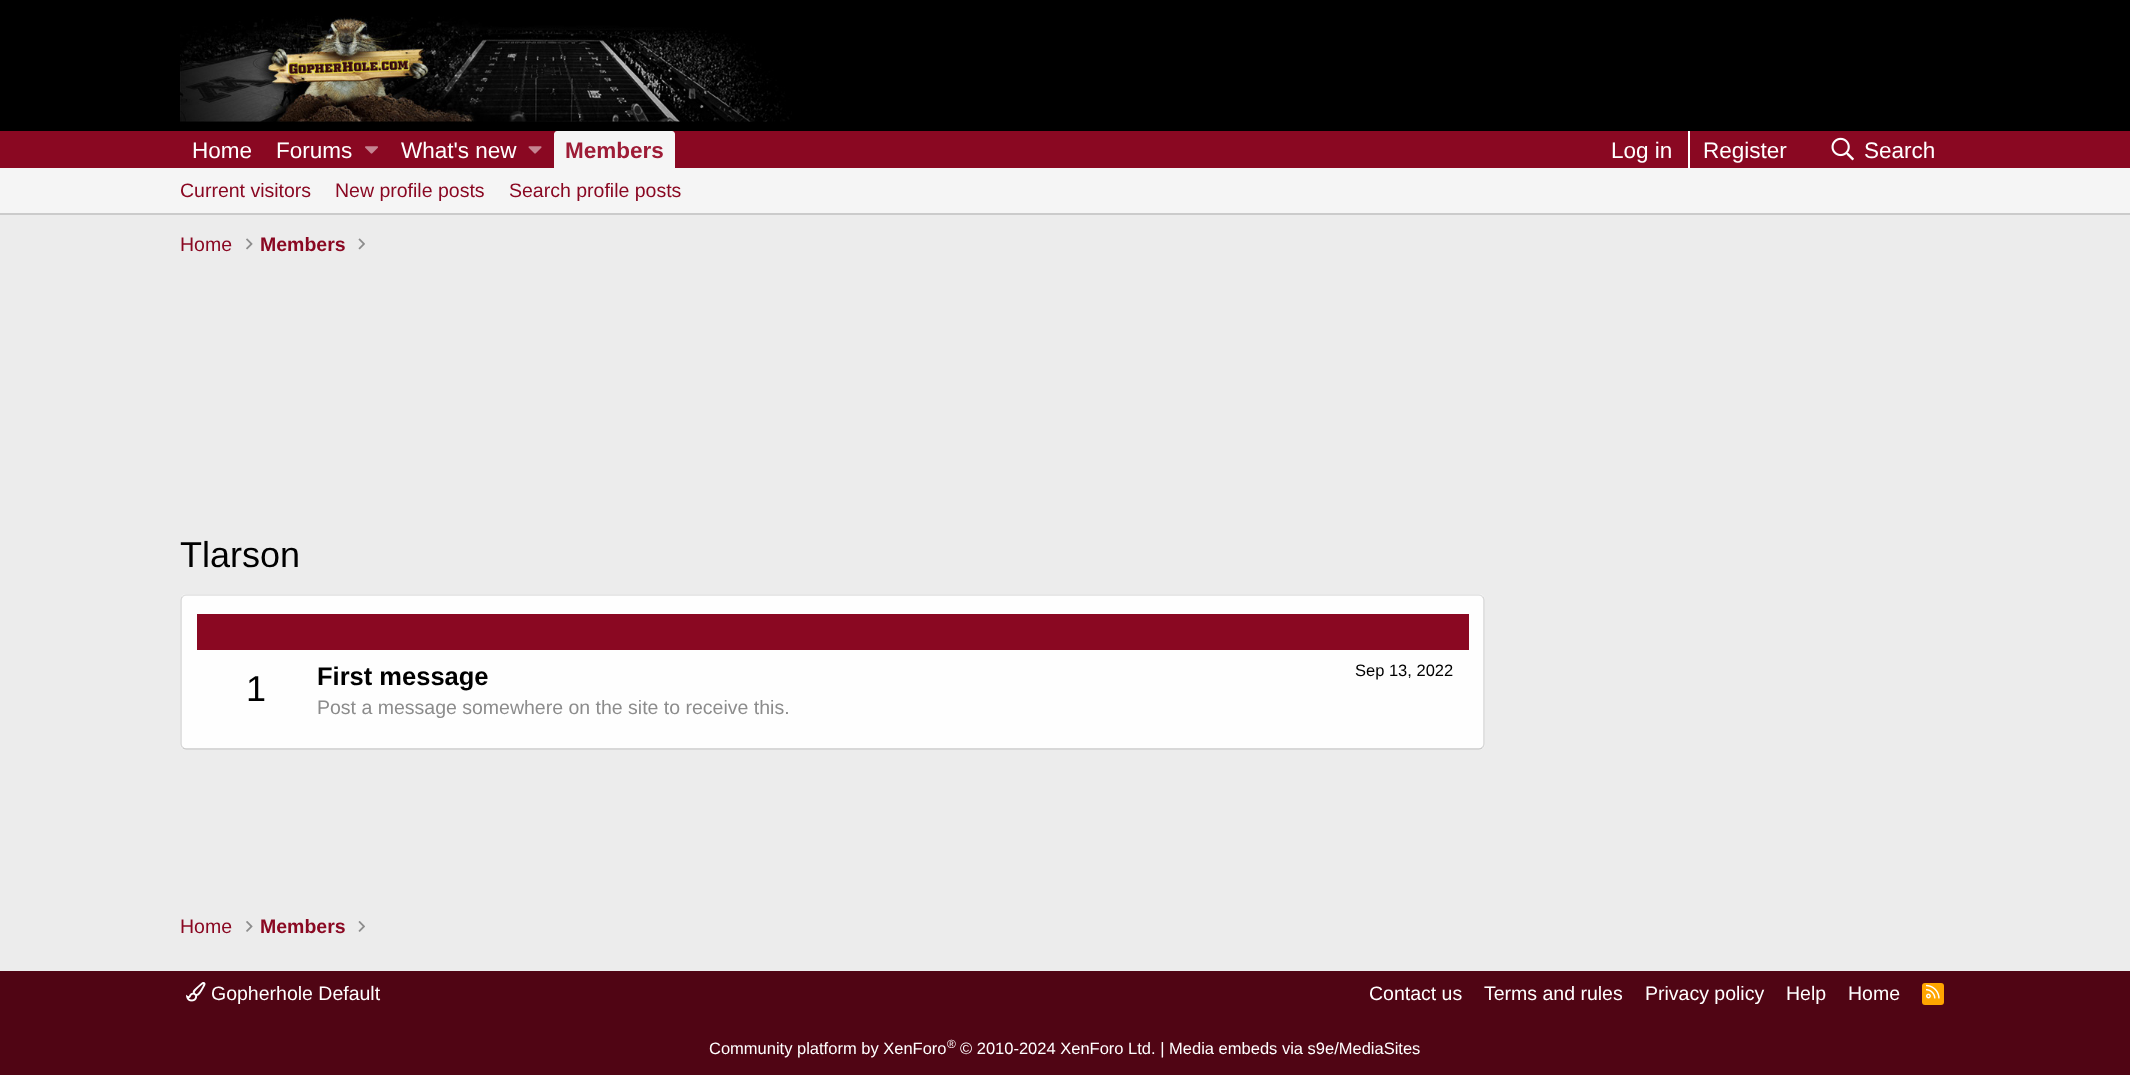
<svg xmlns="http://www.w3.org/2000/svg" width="2130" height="1075">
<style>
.a{font:22.5px Liberation Sans;fill:#fff}
.b{font:bold 22.5px Liberation Sans;fill:#9e1c36}
.c{font:19.5px Liberation Sans;fill:#8a0822}
.d{font:bold 19.5px Liberation Sans;fill:#8a0822}
.e{font:36px Liberation Sans;fill:#000}
.f{font:bold 25.5px Liberation Sans;fill:#000}
.g{font:16.5px Liberation Sans;fill:#000}
.h{font:19.5px Liberation Sans;fill:#8c8c8c}
.i{font:19.5px Liberation Sans;fill:#fff}
.j{font:16.5px Liberation Sans;fill:#fff}
.k{font:12px Liberation Sans;fill:#fff}
</style>
<rect width="100%" height="100%" fill="#ececec"/>
<path fill="#000" d="M0 0h2130v131H0z"/>
<image href="1.png" x="180" y="16" width="612" height="106"/>
<path fill="#8a0822" d="M0 131h2130v37H0z"/>
<image href="2.png" x="365" y="146" width="13" height="8"/>
<image href="3.png" x="528" y="146" width="14" height="8"/>
<path fill="#f5f5f5" d="M557 131h115c1.5 0 3 1.5 3 3v34h-121v-34c0-1.5 1.5-3 3-3z"/>
<path fill="#fff" d="M1688 131h2v37H1688z"/>
<image href="4.png" x="1831" y="137" width="23" height="24"/>
<path fill="#f5f5f5" d="M0 168h2130v45H0z"/>
<path fill="#cbcbcb" d="M0 213h2130v2H0z"/>
<image href="5.png" x="246" y="238" width="7" height="12"/>
<image href="6.png" x="358" y="238" width="7" height="12"/>
<rect fill="#fefefe" x="180" y="594" width="1305" height="156" rx="6"/>
<path fill="none" stroke="#dfdfdf" stroke-width="1.5" d="M182.5 596.5c1-1 2-1.5 3.5-1.5h1293c1.5 0 2.5 .5 3.5 1.5"/>
<path fill="none" stroke="#d8d8d8" stroke-width="1.5" d="M1482.5 596.5c1 1 1.5 2 1.5 3.5v144c0 1.5-.5 2.5-1.5 3.5"/>
<path fill="none" stroke="#cbcbcb" stroke-width="1.5" d="M1482.5 747.5c-1 1-2 1.5-3.5 1.5h-1293c-1.5 0-2.5-.5-3.5-1.5"/>
<path fill="none" stroke="#d8d8d8" stroke-width="1.5" d="M182.5 747.5c-1-1-1.5-2-1.5-3.5v-144c0-1.5 .5-2.5 1.5-3.5"/>
<path fill="#8a0822" d="M197 614h1272v36H197z"/>
<image href="7.png" x="246" y="921" width="7" height="11"/>
<image href="8.png" x="358" y="921" width="7" height="11"/>
<path fill="#500514" d="M0 971h2130v104H0z"/>
<image href="9.png" x="186" y="982" width="20" height="20"/>
<rect fill="#ffa500" x="1922" y="983" width="22" height="22" rx="3"/>
<image href="10.png" x="1926" y="984" width="14" height="15"/>
<text class="a" x="192" y="158">Home</text>
<text class="a" x="276" y="158">Forums</text>
<text class="a" x="401" y="158">What's new</text>
<text class="b" x="565" y="158">Members</text>
<text class="a" x="1611" y="158">Log in</text>
<text class="a" x="1703" y="158">Register</text>
<text class="a" x="1864" y="158">Search</text>
<text class="c" x="180" y="197">Current visitors</text>
<text class="c" x="335" y="197">New profile posts</text>
<text class="c" x="509" y="197">Search profile posts</text>
<text class="c" x="180" y="251">Home</text>
<text class="d" x="260" y="251">Members</text>
<text class="e" x="180" y="567">Tlarson</text>
<text class="e" x="246" y="701">1</text>
<text class="f" x="317" y="685">First message</text>
<text class="g" x="1355" y="676">Sep 13, 2022</text>
<text class="h" x="317" y="714">Post a message somewhere on the site to receive this.</text>
<text class="c" x="180" y="933">Home</text>
<text class="d" x="260" y="933">Members</text>
<text class="i" x="211" y="1000">Gopherhole Default</text>
<text class="i" x="1369" y="1000">Contact us</text>
<text class="i" x="1484" y="1000">Terms and rules</text>
<text class="i" x="1645" y="1000">Privacy policy</text>
<text class="i" x="1786" y="1000">Help</text>
<text class="i" x="1848" y="1000">Home</text>
<text class="j" x="709" y="1054">Community platform by XenForo</text>
<text class="k" x="947" y="1048">®</text>
<text class="j" x="960" y="1054">© 2010-2024 XenForo Ltd. | Media embeds via s9e/MediaSites</text>
</svg>
